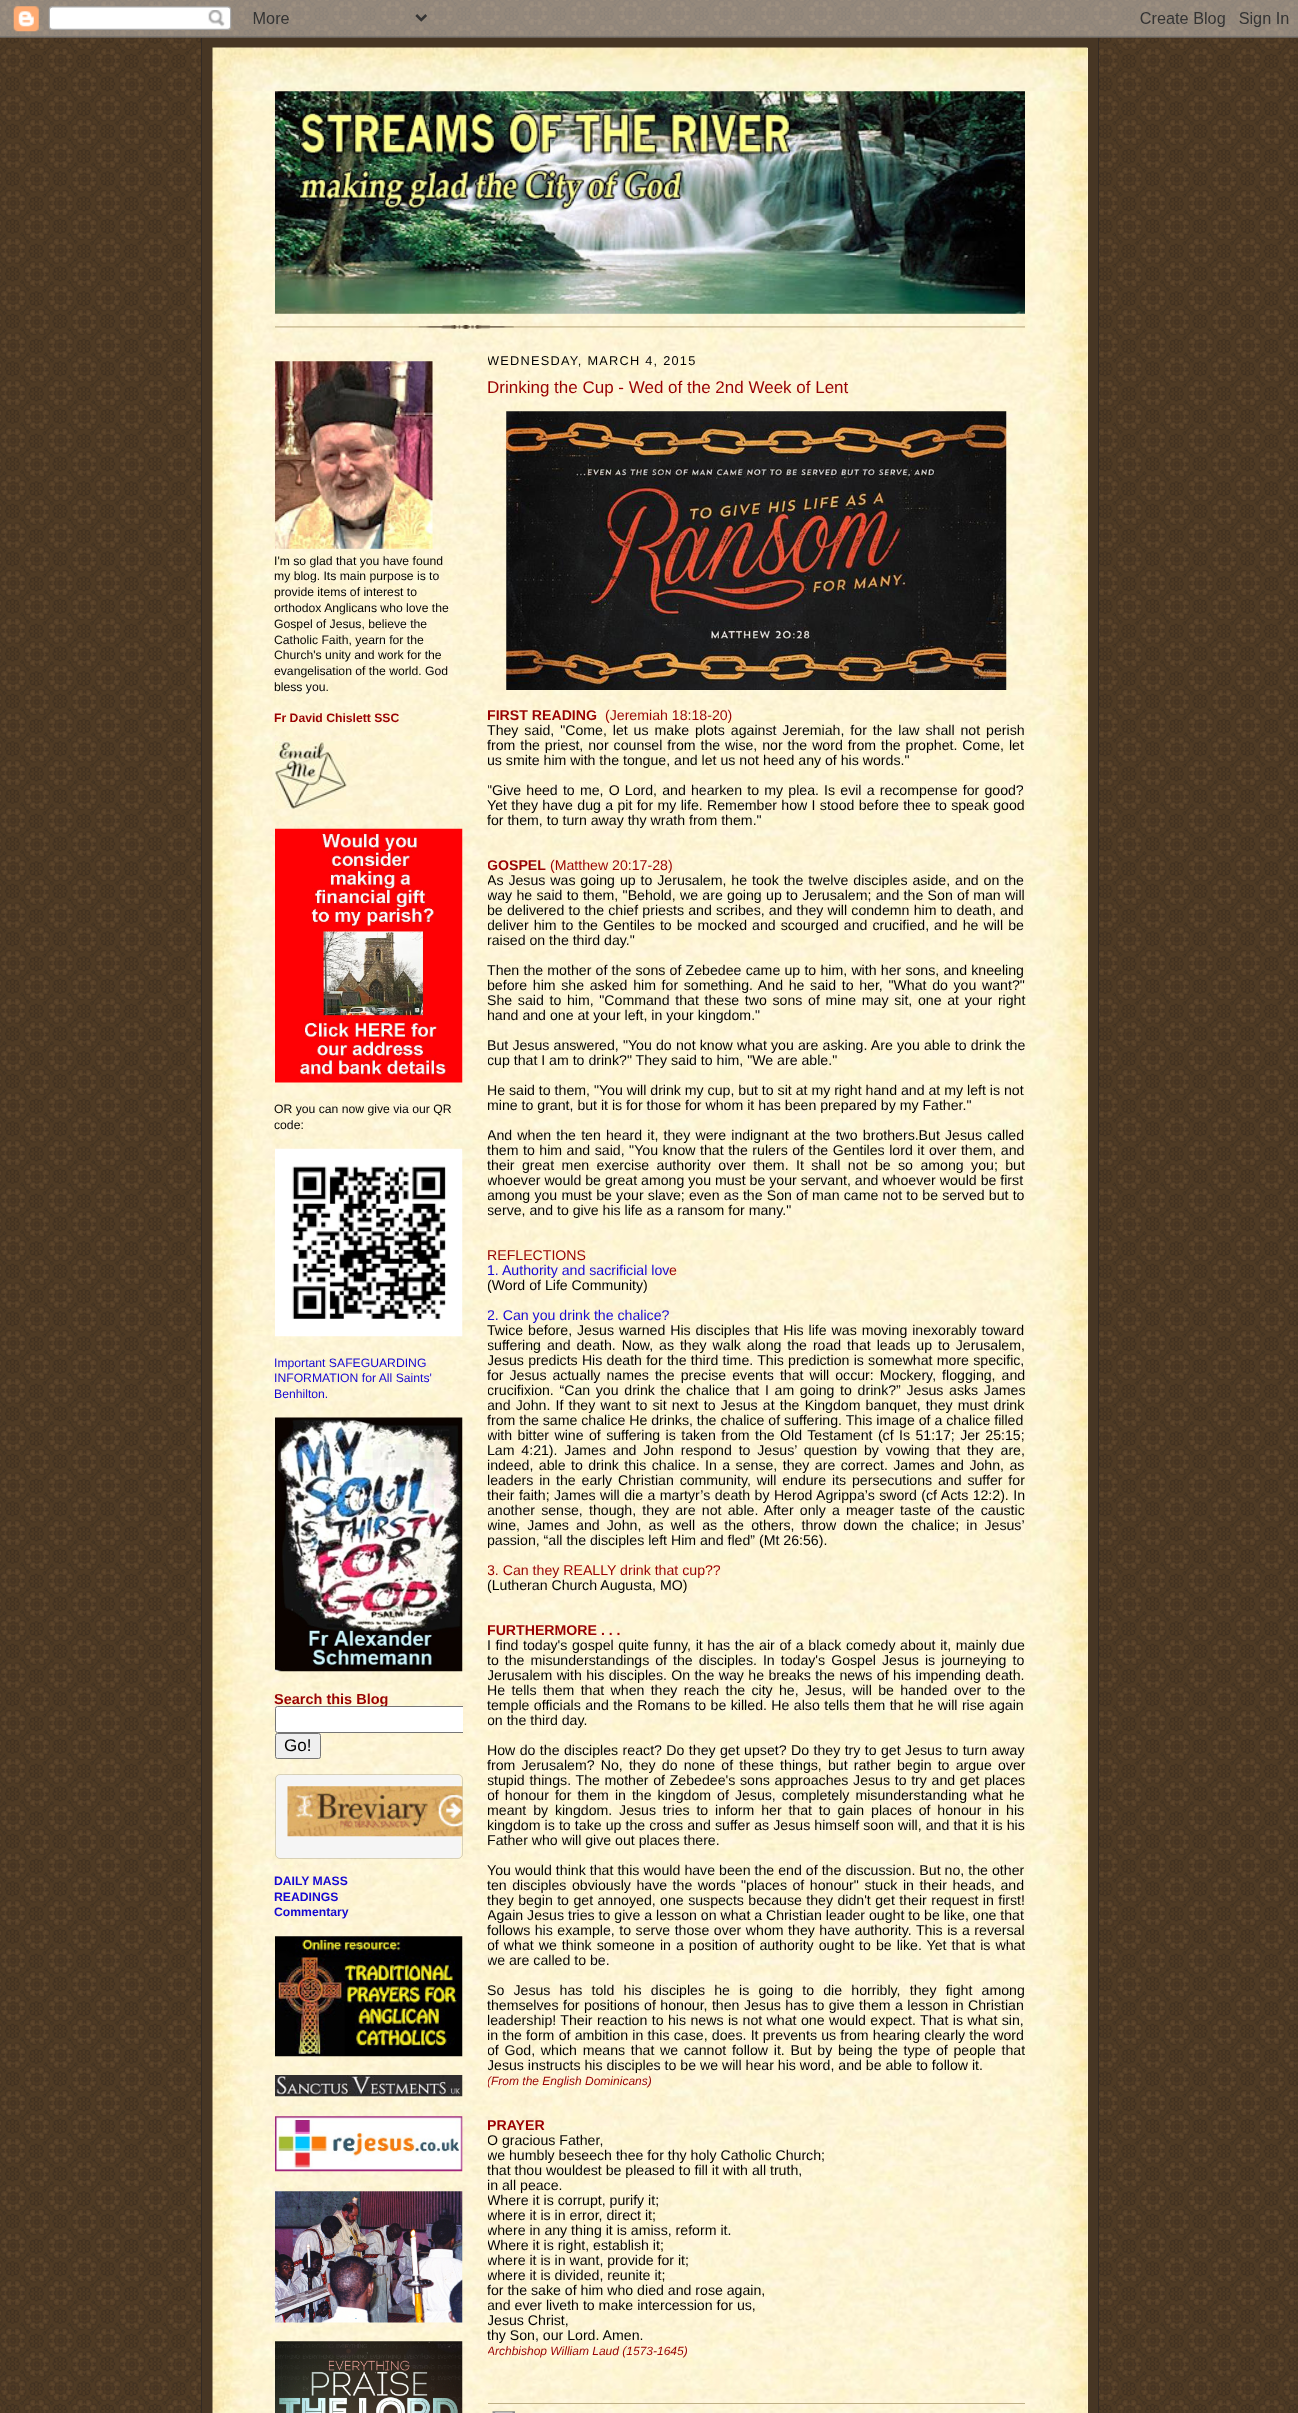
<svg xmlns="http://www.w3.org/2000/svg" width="1298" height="2413">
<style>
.a{font:12.2px Liberation Sans;fill:#000}
.b{font:bold 12.2px Liberation Sans;fill:#900}
.c{font:12.2px Liberation Sans;fill:#1607d2}
.d{font:bold 14.5px Liberation Sans;fill:#900}
.e{font:17px Liberation Sans;fill:#000}
.f{font:bold 12.2px Liberation Sans;fill:#1607d2}
.g{font:12.75px Liberation Sans;letter-spacing:1.25px;fill:#000}
.h{font:17px Liberation Sans;fill:#900}
.i{font:bold 14.15px Liberation Sans;fill:#900}
.j{font:14.15px Liberation Sans;fill:#900}
.k{font:14.15px Liberation Sans;fill:#000}
.l{font:14.15px Liberation Sans;fill:#1607d2}
.m{font:italic 12px Liberation Sans;fill:#900}
</style>
<defs>
<clipPath id="clip1"><path d="M275 344h188v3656H275z"/></clipPath>
<clipPath id="clip2"><path d="M488 344h537v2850H488z"/></clipPath>
</defs>
<rect width="100%" height="100%" fill="#fff"/>
<image href="1.png" x="0" y="0" width="1298" height="2413"/>
<image href="2.png" x="0" y="0" width="1298" height="38"/>
<path fill="#473624" d="M202 38h896v2375H202z"/>
<path fill="#332a24" d="M1098 38h1v2375H1098z"/>
<path fill="#332a24" d="M201 38h1v2375H201z"/>
<path fill="#fff3db" d="M1087 48h1v43H1087z"/>
<image href="3.png" x="212" y="47" width="876" height="62"/>
<path fill="#fff3db" d="M213 91h875v2322H213z"/>
<image href="4.png" x="212" y="91" width="876" height="2322"/>
<image href="5.png" x="275" y="325" width="750" height="4"/>
<image href="6.png" x="275" y="91" width="750" height="223"/>
<image href="7.png" x="275" y="361" width="158" height="188"/>
<image href="8.png" x="275" y="741" width="72" height="68"/>
<image href="9.png" x="275" y="828" width="188" height="255"/>
<image href="10.png" x="275" y="1148" width="188" height="189"/>
<image href="11.png" x="275" y="1417" width="188" height="255"/>
<rect fill="#efefef" stroke="#767676" x="275.5" y="1733.5" width="45" height="25" rx="2"/>
<rect fill="#f5f5f5" x="276" y="1775" width="185" height="83" rx="4"/>
<rect fill="none" stroke="#00000026" x="275.5" y="1774.5" width="187" height="84" rx="4.5"/>
<image href="12.png" x="287" y="1786" width="176" height="51"/>
<image href="13.png" x="275" y="1936" width="188" height="121"/>
<image href="14.png" x="275" y="2075" width="188" height="22"/>
<image href="15.png" x="275" y="2116" width="188" height="56"/>
<image href="16.png" x="275" y="2191" width="188" height="132"/>
<image href="17.png" x="275" y="2341" width="188" height="72"/>
<image href="18.png" x="506" y="411" width="501" height="279"/>
<path fill="#bfb186" d="M488 2403h537v1H488z"/>
<image href="19.png" x="492" y="2411" width="23" height="2"/>
<text class="a" x="274" y="565">I'm so glad that you have found</text>
<text class="a" x="274" y="580">my blog. Its main purpose is to</text>
<text class="a" x="274" y="596">provide items of interest to</text>
<text class="a" x="274" y="612">orthodox Anglicans who love the</text>
<text class="a" x="274" y="628">Gospel of Jesus, believe the</text>
<text class="a" x="274" y="644">Catholic Faith, yearn for the</text>
<text class="a" x="274" y="659">Church's unity and work for the</text>
<text class="a" x="274" y="675">evangelisation of the world. God</text>
<text class="a" x="274" y="691">bless you.</text>
<text class="b" x="274" y="722">Fr David Chislett SSC</text>
<text class="a" x="274" y="1113">OR you can now give via our QR</text>
<text class="a" x="274" y="1129">code:</text>
<text class="c" x="274" y="1367">Important SAFEGUARDING</text>
<text class="c" x="274" y="1382">INFORMATION for All Saints'</text>
<text class="c" x="274" y="1398">Benhilton.</text>
<text class="d" x="274" y="1704">Search this Blog</text>
<path fill="#fff" d="M277.5 1706h185.5v27h-185.5c-1.5 0-2.5-1-2.5-2.5v-22c0-1.5 1-2.5 2.5-2.5z"/>
<g clip-path="url(#clip1)">
<rect fill="none" stroke="#767676" x="275.5" y="1706.5" width="230" height="26" rx="2"/>
</g>
<text class="e" x="284" y="1751">Go!</text>
<text class="f" x="274" y="1885">DAILY MASS</text>
<text class="f" x="274" y="1901">READINGS</text>
<text class="f" x="274" y="1916">Commentary</text>
<g clip-path="url(#clip2)">
<text class="g" x="487" y="365">WEDNESDAY, MARCH 4, 2015</text>
</g>
<text class="h" x="487" y="393">Drinking the Cup - Wed of the 2nd Week of Lent</text>
<g clip-path="url(#clip2)">
<text class="i" x="487" y="720">FIRST READING</text>
</g>
<text class="j" x="605" y="720">(Jeremiah 18:18-20)</text>
<text class="k" x="487" y="735" word-spacing="2">They said, "Come, let us make plots against Jeremiah, for the law shall not perish</text>
<text class="k" x="487" y="750" word-spacing="1">from the priest, nor counsel from the wise, nor the word from the prophet. Come, let</text>
<g clip-path="url(#clip2)">
<text class="k" x="487" y="765">us smite him with the tongue, and let us not heed any of his words."</text>
<text class="k" x="487" y="795" word-spacing="1.25">"Give heed to me, O Lord, and hearken to my plea. Is evil a recompense for good?</text>
</g>
<text class="k" x="487" y="810" word-spacing="0.4">Yet they have dug a pit for my life. Remember how I stood before thee to speak good</text>
<text class="k" x="487" y="825">for them, to turn away thy wrath from them."</text>
<g clip-path="url(#clip2)">
<text class="i" x="487" y="870">GOSPEL</text>
</g>
<text class="j" x="550" y="870">(Matthew 20:17-28)</text>
<g clip-path="url(#clip2)">
<text class="k" x="487" y="885" word-spacing="1">As Jesus was going up to Jerusalem, he took the twelve disciples aside, and on the</text>
<text class="k" x="487" y="900" word-spacing="0.4">way he said to them, "Behold, we are going up to Jerusalem; and the Son of man will</text>
<text class="k" x="487" y="915" word-spacing="0.25">be delivered to the chief priests and scribes, and they will condemn him to death, and</text>
<text class="k" x="487" y="930" word-spacing="1.1">deliver him to the Gentiles to be mocked and scourged and crucified, and he will be</text>
<text class="k" x="487" y="945">raised on the third day."</text>
</g>
<text class="k" x="487" y="975" word-spacing="0.3">Then the mother of the sons of Zebedee came up to him, with her sons, and kneeling</text>
<g clip-path="url(#clip2)">
<text class="k" x="487" y="990" word-spacing="1.75">before him she asked him for something. And he said to her, "What do you want?"</text>
</g>
<text class="k" x="487" y="1005" word-spacing="1.75">She said to him, "Command that these two sons of mine may sit, one at your right</text>
<g clip-path="url(#clip2)">
<text class="k" x="487" y="1020">hand and one at your left, in your kingdom."</text>
</g>
<text class="k" x="487" y="1050" word-spacing="0.25">But Jesus answered, "You do not know what you are asking. Are you able to drink the</text>
<g clip-path="url(#clip2)">
<text class="k" x="487" y="1065">cup that I am to drink?" They said to him, "We are able."</text>
</g>
<text class="k" x="487" y="1095">He said to them, "You will drink my cup, but to sit at my right hand and at my left is not</text>
<g clip-path="url(#clip2)">
<text class="k" x="487" y="1110">mine to grant, but it is for those for whom it has been prepared by my Father."</text>
<text class="k" x="487" y="1140" word-spacing="1.25">And when the ten heard it, they were indignant at the two brothers.But Jesus called</text>
</g>
<text class="k" x="487" y="1155" word-spacing="0.6">them to him and said, "You know that the rulers of the Gentiles lord it over them, and</text>
<text class="k" x="487" y="1170" word-spacing="3.5">their great men exercise authority over them. It shall not be so among you; but</text>
<g clip-path="url(#clip2)">
<text class="k" x="487" y="1185">whoever would be great among you must be your servant, and whoever would be first</text>
<text class="k" x="487" y="1200" word-spacing="0.25">among you must be your slave; even as the Son of man came not to be served but to</text>
<text class="k" x="487" y="1215">serve, and to give his life as a ransom for many."</text>
</g>
<text class="j" x="487" y="1260">REFLECTIONS</text>
<text class="l" x="487" y="1275">1. Authority and sacrificial lov</text>
<text class="j" x="669" y="1275">e</text>
<g clip-path="url(#clip2)">
<text class="k" x="487" y="1290">(Word of Life Community)</text>
<text class="l" x="487" y="1320">2. Can you drink the chalice?</text>
</g>
<text class="k" x="487" y="1335" word-spacing="1">Twice before, Jesus warned His disciples that His life was moving inexorably toward</text>
<g clip-path="url(#clip2)">
<text class="k" x="487" y="1350" word-spacing="2">suffering and death. Now, as they walk along the road that leads up to Jerusalem,</text>
<text class="k" x="487" y="1365" word-spacing="0.3">Jesus predicts His death for the third time. This prediction is somewhat more specific,</text>
</g>
<text class="k" x="487" y="1380" word-spacing="2.1">for Jesus actually names the precise events that will occur: Mockery, flogging, and</text>
<g clip-path="url(#clip2)">
<text class="k" x="487" y="1395" word-spacing="1.75">crucifixion. “Can you drink the chalice that I am going to drink?” Jesus asks James</text>
<text class="k" x="487" y="1410" word-spacing="1.25">and John. If they want to sit next to Jesus at the Kingdom banquet, they must drink</text>
</g>
<text class="k" x="487" y="1425">from the same chalice He drinks, the chalice of suffering. This image of a chalice filled</text>
<g clip-path="url(#clip2)">
<text class="k" x="487" y="1440" word-spacing="1.5">with bitter wine of suffering is taken from the Old Testament (cf Is 51:17; Jer 25:15;</text>
</g>
<text class="k" x="487" y="1455" word-spacing="2.9">Lam 4:21). James and John respond to Jesus’ question by vowing that they are,</text>
<g clip-path="url(#clip2)">
<text class="k" x="487" y="1470" word-spacing="1.5">indeed, able to drink this chalice. In a sense, they are correct. James and John, as</text>
<text class="k" x="487" y="1485" word-spacing="1.9">leaders in the early Christian community, will endure its persecutions and suffer for</text>
</g>
<text class="k" x="487" y="1500" word-spacing="0.5">their faith; James will die a martyr’s death by Herod Agrippa’s sword (cf Acts 12:2). In</text>
<g clip-path="url(#clip2)">
<text class="k" x="487" y="1515" word-spacing="2.25">another sense, though, they are not able. After only a meager taste of the caustic</text>
<text class="k" x="487" y="1530" word-spacing="3.25">wine, James and John, as well as the others, throw down the chalice; in Jesus’</text>
<text class="k" x="487" y="1545">passion, “all the disciples left Him and fled” (Mt 26:56).</text>
<text class="j" x="487" y="1575">3. Can they REALLY drink that cup??</text>
<text class="k" x="487" y="1590">(Lutheran Church Augusta, MO)</text>
<text class="i" x="487" y="1635">FURTHERMORE . . .</text>
</g>
<text class="k" x="487" y="1650" word-spacing="0.7">I find today's gospel quite funny, it has the air of a black comedy about it, mainly due</text>
<text class="k" x="487" y="1665" word-spacing="2.1">to the misunderstandings of the disciples. In today's Gospel Jesus is journeying to</text>
<g clip-path="url(#clip2)">
<text class="k" x="487" y="1680" word-spacing="0.5">Jerusalem with his disciples. On the way he breaks the news of his impending death.</text>
</g>
<text class="k" x="487" y="1695" word-spacing="2.4">He tells them that when they reach the city he, Jesus, will be handed over to the</text>
<text class="k" x="487" y="1710" word-spacing="0.5">temple officials and the Romans to be killed. He also tells them that he will rise again</text>
<g clip-path="url(#clip2)">
<text class="k" x="487" y="1725">on the third day.</text>
</g>
<text class="k" x="487" y="1755" word-spacing="0.5">How do the disciples react? Do they get upset? Do they try to get Jesus to turn away</text>
<text class="k" x="487" y="1770" word-spacing="2.25">from Jerusalem? No, they do none of these things, but rather begin to argue over</text>
<g clip-path="url(#clip2)">
<text class="k" x="487" y="1785" word-spacing="0.75">stupid things. The mother of Zebedee's sons approaches Jesus to try and get places</text>
<text class="k" x="487" y="1800" word-spacing="2.1">of honour for them in the kingdom of Jesus, completely misunderstanding what he</text>
<text class="k" x="487" y="1815" word-spacing="2.9">meant by kingdom. Jesus tries to inform her that to gain places of honour in his</text>
<text class="k" x="487" y="1830" word-spacing="0.2">kingdom is to take up the cross and suffer as Jesus himself soon will, and that it is his</text>
</g>
<text class="k" x="487" y="1845">Father who will give out places there.</text>
<text class="k" x="487" y="1875" word-spacing="0.1">You would think that this would have been the end of the discussion. But no, the other</text>
<text class="k" x="487" y="1890" word-spacing="1.6">ten disciples obviously have the words "places of honour" stuck in their heads, and</text>
<text class="k" x="487" y="1905" word-spacing="0.5">they begin to get annoyed, one suspects because they didn't get their request in first!</text>
<g clip-path="url(#clip2)">
<text class="k" x="487" y="1920">Again Jesus tries to give a lesson on what a Christian leader ought to be like, one that</text>
</g>
<text class="k" x="487" y="1935" word-spacing="0.6">follows his example, to serve those over whom they have authority. This is a reversal</text>
<g clip-path="url(#clip2)">
<text class="k" x="487" y="1950" word-spacing="1.1">of what we think someone in a position of authority ought to be like. Yet that is what</text>
<text class="k" x="487" y="1965">we are called to be.</text>
</g>
<text class="k" x="487" y="1995" word-spacing="5.25">So Jesus has told his disciples he is going to die horribly, they fight among</text>
<text class="k" x="487" y="2010" word-spacing="0.5">themselves for positions of honour, then Jesus has to give them a lesson in Christian</text>
<g clip-path="url(#clip2)">
<text class="k" x="487" y="2025" word-spacing="0.5">leadership! Their reaction to his news is not what one would expect. That is what sin,</text>
<text class="k" x="487" y="2040" word-spacing="0.3">in the form of ambition in this case, does. It prevents us from hearing clearly the word</text>
<text class="k" x="487" y="2055" word-spacing="1.75">of God, which means that we cannot follow it. But by being the type of people that</text>
<text class="k" x="487" y="2070">Jesus instructs his disciples to be we will hear his word, and be able to follow it.</text>
<text class="m" x="487" y="2085">(From the English Dominicans)</text>
<text class="i" x="487" y="2130">PRAYER</text>
<text class="k" x="487" y="2145">O gracious Father,</text>
<text class="k" x="487" y="2160">we humbly beseech thee for thy holy Catholic Church;</text>
</g>
<text class="k" x="487" y="2175">that thou wouldest be pleased to fill it with all truth,</text>
<g clip-path="url(#clip2)">
<text class="k" x="487" y="2190">in all peace.</text>
<text class="k" x="487" y="2205">Where it is corrupt, purify it;</text>
<text class="k" x="487" y="2220">where it is in error, direct it;</text>
<text class="k" x="487" y="2235">where in any thing it is amiss, reform it.</text>
<text class="k" x="487" y="2250">Where it is right, establish it;</text>
<text class="k" x="487" y="2265">where it is in want, provide for it;</text>
<text class="k" x="487" y="2280">where it is divided, reunite it;</text>
</g>
<text class="k" x="487" y="2295">for the sake of him who died and rose again,</text>
<g clip-path="url(#clip2)">
<text class="k" x="487" y="2310">and ever liveth to make intercession for us,</text>
<text class="k" x="487" y="2325">Jesus Christ,</text>
</g>
<text class="k" x="487" y="2340">thy Son, our Lord. Amen.</text>
<g clip-path="url(#clip2)">
<text class="m" x="487" y="2355">Archbishop William Laud (1573-1645)</text>
</g>
</svg>
